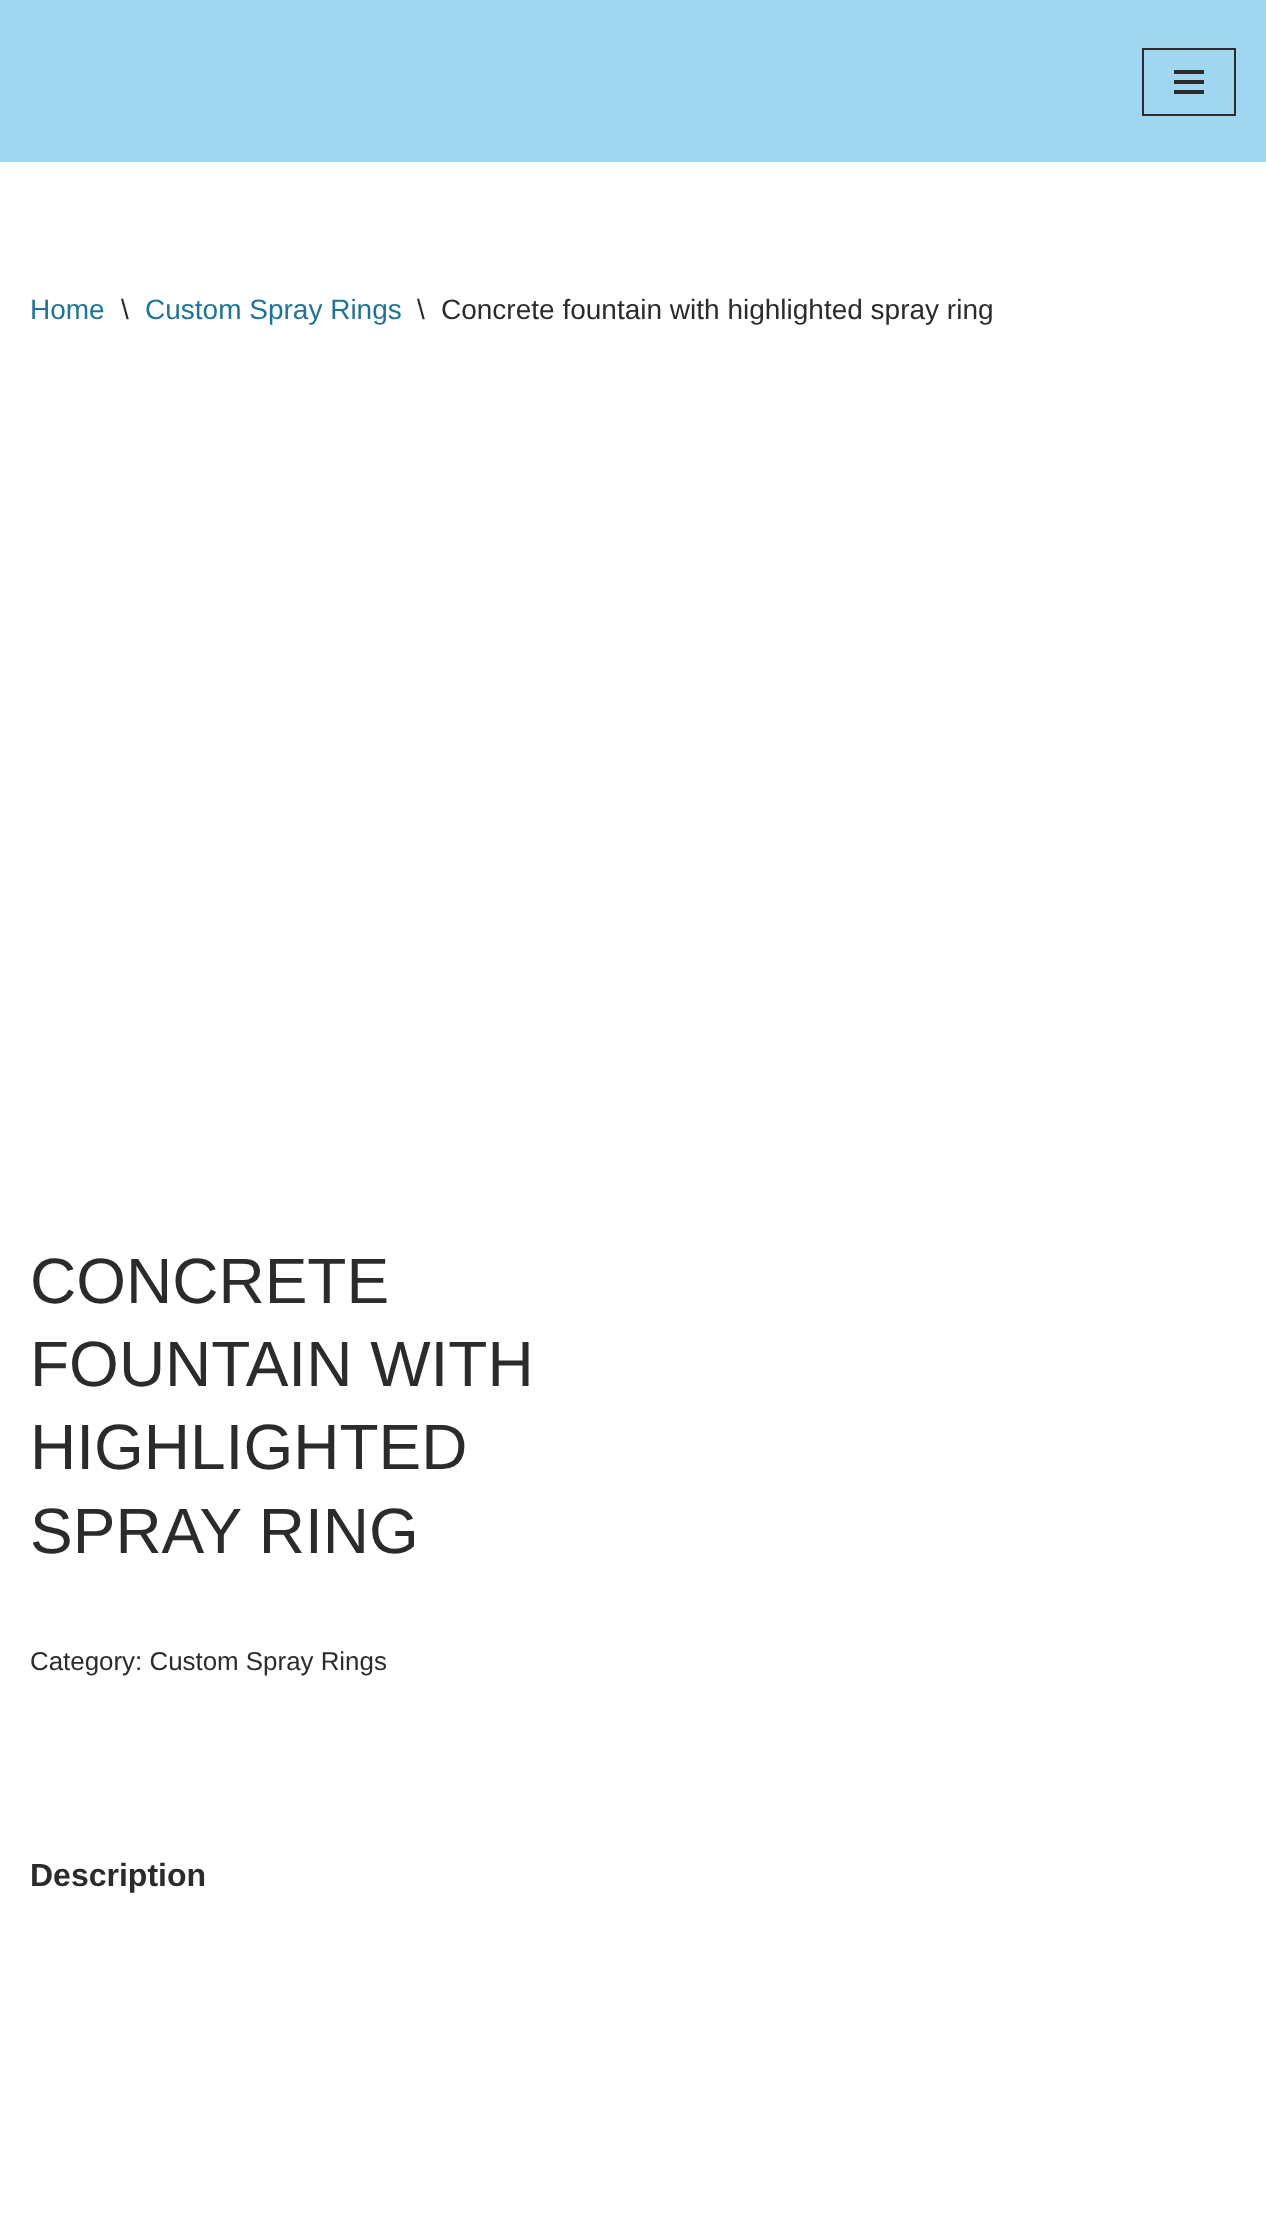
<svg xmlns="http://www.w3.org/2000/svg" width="1266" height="2222">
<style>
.a{font:28px Liberation Sans;fill:#1f7398}
.b{font:28px Liberation Sans;fill:#2b2b2b}
.c{font:64px Liberation Sans;fill:#2b2b2b}
.d{font:25.9px Liberation Sans;fill:#2b2b2b}
.e{font:bold 32px Liberation Sans;fill:#2b2b2b}
</style>
<rect width="100%" height="100%" fill="#fff"/>
<path fill="#0000001a" filter="blur(3px)" d="M0 -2h1266v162H0z"/>
<path fill="#a0d6f0" d="M0 0h1266v162H0z"/>
<path fill="none" stroke="#2b2b2b" stroke-width="2" d="M1143 49h92v66H1143z"/>
<path fill="#2b2b2b" d="M1174 70h30v4H1174z"/>
<path fill="#2b2b2b" d="M1174 80h30v4H1174z"/>
<path fill="#2b2b2b" d="M1174 90h30v4H1174z"/>
<text class="a" x="30" y="319">Home</text>
<text class="b" x="121" y="319">\</text>
<text class="a" x="145" y="319">Custom Spray Rings</text>
<text class="b" x="417" y="319">\</text>
<text class="b" x="441" y="319">Concrete fountain with highlighted spray ring</text>
<text class="c" x="30" y="1303">CONCRETE</text>
<text class="c" x="30" y="1386">FOUNTAIN WITH</text>
<text class="c" x="30" y="1469">HIGHLIGHTED</text>
<text class="c" x="30" y="1553">SPRAY RING</text>
<text class="d" x="30" y="1670">Category: Custom Spray Rings</text>
<text class="e" x="30" y="1886">Description</text>
</svg>
